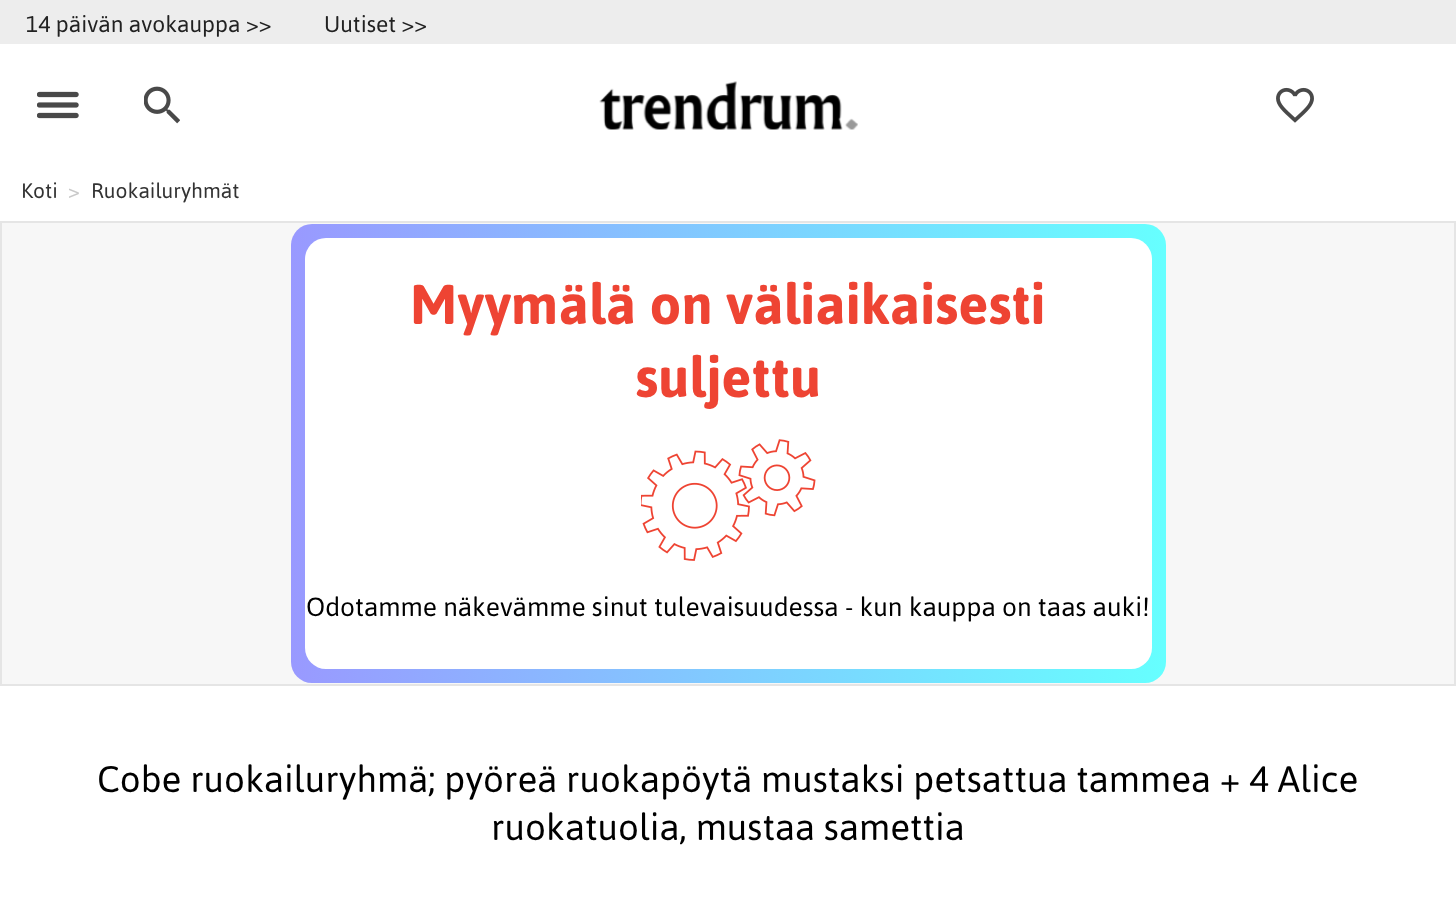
<svg xmlns="http://www.w3.org/2000/svg" width="1456" height="923">
<style>
.a{font:22.75px Asap;fill:#222}
.b{font:21px Asap;fill:#333}
.c{font:21px Asap;fill:#c9c9c9}
.d{font:bold 56px Asap;fill:#e43}
.e{font:26.25px Asap;fill:#000}
.f{font:36.75px Asap;fill:#000}
</style>
<defs>
<linearGradient id="g1" gradientUnits="userSpaceOnUse" x1="291" y1="453" x2="1166" y2="453"><stop offset="0" stop-color="#99f"/><stop offset="1" stop-color="#6ff"/></linearGradient>
</defs>
<rect width="100%" height="100%" fill="#fff"/>
<path fill="#ededed" d="M0 0h1456v44H0z"/>
<image href="1.png" x="37" y="91" width="42" height="28"/>
<image href="2.png" x="144" y="86" width="36" height="38"/>
<image href="3.png" x="599" y="81" width="259" height="49"/>
<image href="4.png" x="1276" y="87" width="38" height="36"/>
<path fill="#f7f7f7" stroke="#e5e5e5" stroke-width="2" d="M1 222h1454v463H1z"/>
<rect fill="url(#g1)" x="291" y="224" width="875" height="459" rx="21"/>
<rect fill="#fff" x="305" y="238" width="847" height="431" rx="21"/>
<image href="5.png" x="641" y="439" width="175" height="122"/>
<text class="a" x="26" y="32">14 päivän avokauppa &gt;&gt;</text>
<text class="a" x="324" y="32">Uutiset &gt;&gt;</text>
<text class="b" x="21" y="198">Koti</text>
<text class="c" x="68" y="198">&gt;</text>
<text class="b" x="91" y="198">Ruokailuryhmät</text>
<text class="d" x="410" y="324">Myymälä on väliaikaisesti</text>
<text class="d" x="635" y="397">suljettu</text>
<text class="e" x="306" y="616">Odotamme näkevämme sinut tulevaisuudessa - kun kauppa on taas auki!</text>
<text class="f" x="97" y="792">Cobe ruokailuryhmä; pyöreä ruokapöytä mustaksi petsattua tammea + 4 Alice</text>
<text class="f" x="491" y="840">ruokatuolia, mustaa samettia</text>
</svg>
